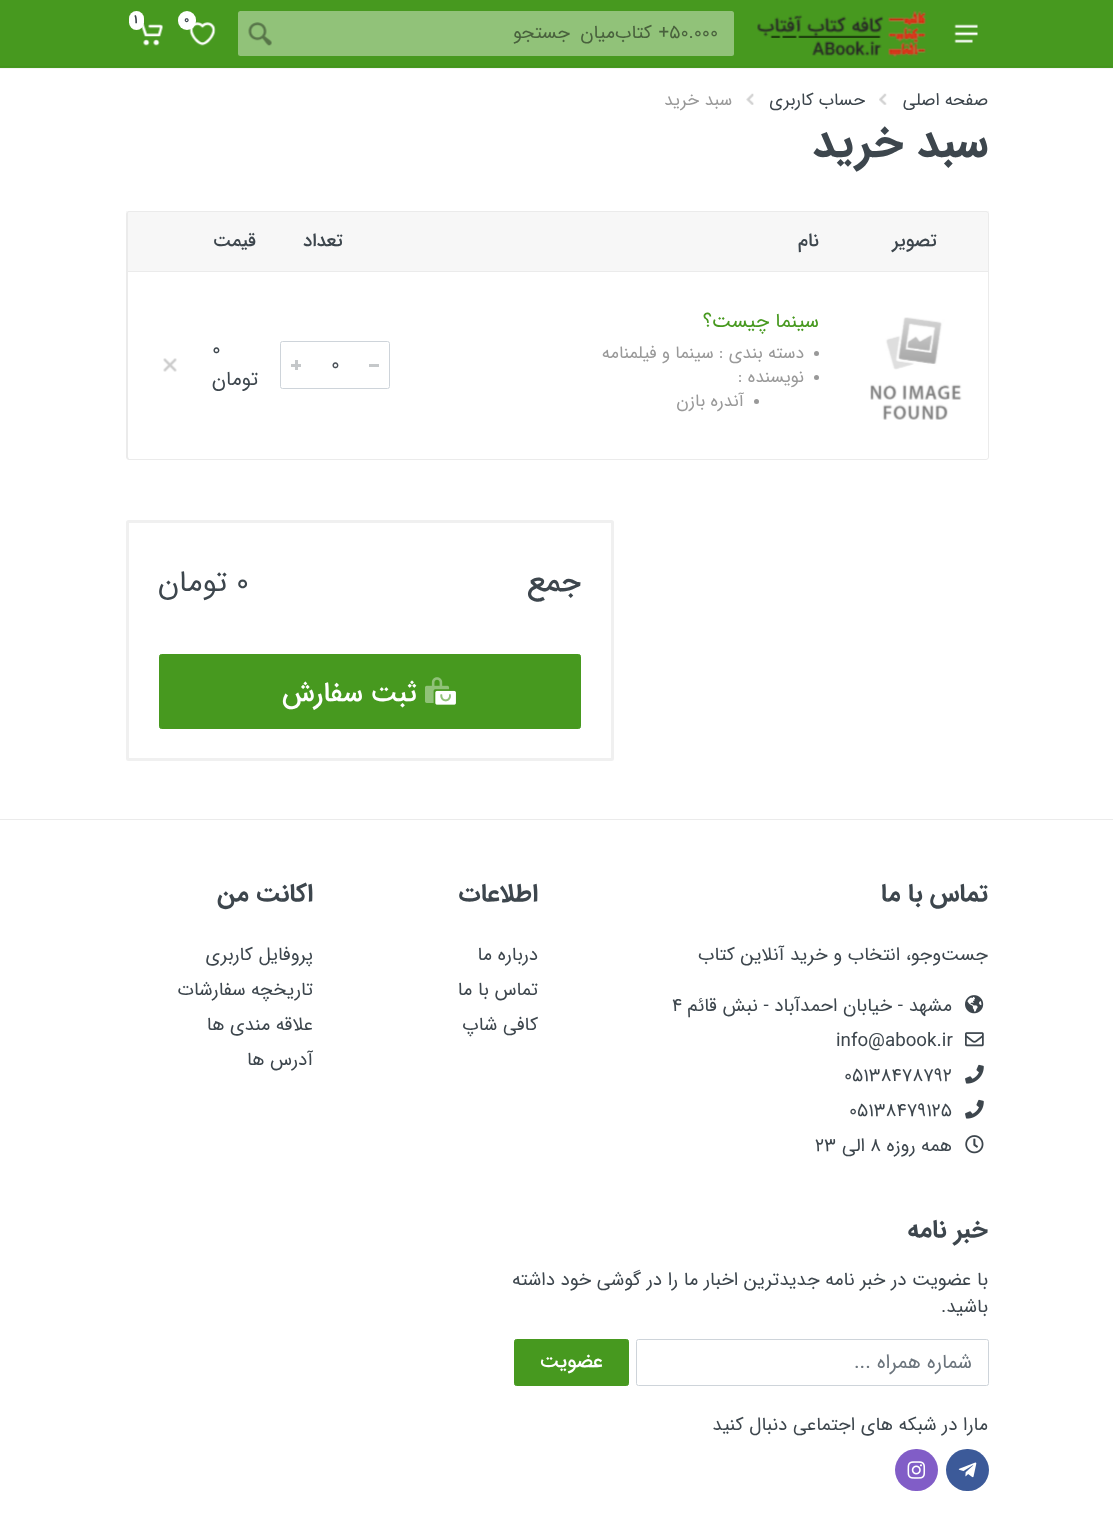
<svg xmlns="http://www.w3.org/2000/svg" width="1113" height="1532">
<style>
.a{font:bold 12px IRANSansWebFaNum;fill:#3d464d}
.b{font:18.75px IRANSansWebFaNum;direction:rtl;fill:#49613d}
.c{font:17.5px IRANSansWebFaNum;direction:rtl;fill:#3d464d}
.d{font:17.5px IRANSansWebFaNum;direction:rtl;fill:#999}
.e{font:bold 45px IRANSansWebFaNum;direction:rtl;fill:#3d464d}
.f{font:500 18.75px IRANSansWebFaNum;direction:rtl;fill:#3d464d}
.g{font:20px IRANSansWebFaNum;direction:rtl;fill:#47991f}
.h{font:20px IRANSansWebFaNum;fill:#495057}
.i{font:20px IRANSansWebFaNum;fill:#3d464d}
.j{font:20px IRANSansWebFaNum;direction:rtl;fill:#3d464d}
.k{font:500 30px IRANSansWebFaNum;direction:rtl;fill:#3d464d}
.l{font:30px IRANSansWebFaNum;fill:#3d464d}
.m{font:30px IRANSansWebFaNum;direction:rtl;fill:#3d464d}
.n{font:500 27.5px IRANSansWebFaNum;direction:rtl;fill:#fff}
.o{font:bold 25px IRANSansWebFaNum;direction:rtl;fill:#3d464d}
.p{font:18.75px IRANSansWebFaNum;direction:rtl;fill:#3d464d}
.q{font:18.75px IRANSansWebFaNum;fill:#3d464d}
.r{font:20px IRANSansWebFaNum;direction:rtl;fill:#6c757d}
.s{font:500 20px IRANSansWebFaNum;direction:rtl;fill:#fff}
</style>
<rect width="100%" height="100%" fill="#fff"/>
<path fill="#f5f5f5" d="M0 68v1h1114v-68v67z"/>
<path fill="#47991f" d="M0 0h1113v68H0z"/>
<path fill="#44931e" d="M0 66h1113v1H0z"/>
<image href="1.png" x="757" y="10" width="169" height="47"/>
<image href="2.png" x="189" y="22" width="27" height="24"/>
<rect fill="#fff" x="178" y="11" width="18" height="19" rx="9"/>
<image href="3.png" x="141" y="22" width="22" height="24"/>
<rect fill="#fff" x="129" y="11" width="15" height="19" rx="7.5"/>
<image href="4.png" x="954" y="24" width="24" height="19"/>
<rect fill="#91c279" x="238" y="11" width="496" height="45" rx="2.5"/>
<image href="5.png" x="248" y="22" width="24" height="24"/>
<image href="6.png" x="879" y="93" width="8" height="12"/>
<image href="7.png" x="746" y="93" width="8" height="12"/>
<path fill="#f7f7f7" d="M126 211h863v60H126z"/>
<path fill="#ebebeb" fill-rule="evenodd" d="M842 211h144c1 0 3 2 3 3v57h-147zm0 1h144c1 0 2 1 2 2v57h-146z"/>
<path fill="#ebebeb" d="M190 211h653v1H190z"/>
<path fill="#ebebeb" fill-rule="evenodd" d="M129 211h61v60h-64v-57c0-1 2-3 3-3zm0 1h61v59h-62v-57c0-1 0-2 1-2z"/>
<path fill="#ebebeb" fill-rule="evenodd" d="M842 271h147v186c0 2-2 3-3 3h-144zm0 1h146v185c0 1-1 2-2 2h-144z"/>
<image href="8.png" x="870" y="317" width="92" height="103"/>
<path fill="#ebebeb" d="M190 271h653v1H190z"/>
<path fill="#ebebeb" d="M190 459h653v1H190z"/>
<circle fill="#999" cx="816.5" cy="353.5" r="2.5"/>
<circle fill="#999" cx="816.5" cy="377.5" r="2.5"/>
<circle fill="#999" cx="756.5" cy="401.5" r="2.5"/>
<rect fill="none" stroke="#ced4da" x="280.5" y="341.5" width="109" height="47" rx="2"/>
<path fill="#c5c8ca" d="M369 364h10v3H369z"/>
<path fill="#c5c8ca" d="M291 364h10v3H291z"/>
<path fill="#c5c8ca" d="M295 360h3v10H295z"/>
<path fill="#ebebeb" fill-rule="evenodd" d="M126 271h64v189h-61c-1 0-3-1-3-3zm2 1h62v187h-61l-1-2z"/>
<image href="9.png" x="163" y="358" width="14" height="14"/>
<rect fill="none" stroke="#f0f0f0" stroke-width="3" x="127.5" y="521.5" width="485" height="238" rx="1"/>
<rect fill="#47991f" stroke="#47991f" x="159.5" y="654.5" width="421" height="74" rx="2"/>
<image href="11.png" x="435" y="690" width="21" height="15"/>
<image href="10.png" x="425" y="677" width="26" height="26"/>
<path fill="#ebebeb" d="M0 819h1113v1H0z"/>
<image href="12.png" x="965" y="995" width="19" height="19"/>
<image href="13.png" x="965" y="1032" width="19" height="15"/>
<image href="14.png" x="965" y="1064" width="19" height="20"/>
<image href="14.png" x="965" y="1099" width="19" height="20"/>
<image href="15.png" x="965" y="1135" width="19" height="19"/>
<rect fill="none" stroke="#ced4da" x="636.5" y="1339.5" width="352" height="46" rx="2"/>
<rect fill="#47991f" stroke="#47991f" x="514.5" y="1339.5" width="114" height="46" rx="2"/>
<rect fill="#3c5a99" x="946" y="1449" width="43" height="42" rx="21"/>
<image href="16.png" x="958" y="1462" width="19" height="16"/>
<rect fill="#815dc7" x="895" y="1449" width="43" height="42" rx="21"/>
<image href="17.png" x="907" y="1461" width="19" height="18"/>
<text class="a" x="184" y="23">0</text>
<text class="a" x="134" y="23">1</text>
<text class="b" x="718" y="38" word-spacing="1">50.000+ کتاب</text>
<text class="b" x="615" y="38">میان</text>
<text class="b" x="570" y="38">جستجو</text>
<text class="c" x="988" y="105">صفحه اصلی</text>
<text class="c" x="865" y="105">حساب کاربری</text>
<text class="d" x="732" y="105">سبد خرید</text>
<text class="e" x="988" y="156">سبد خرید</text>
<text class="f" x="937" y="246">تصویر</text>
<text class="f" x="819" y="246">نام</text>
<text class="f" x="343" y="246">تعداد</text>
<text class="f" x="256" y="246">قیمت</text>
<text class="g" x="819" y="327">سینما چیست؟</text>
<text class="d" x="804" y="358">دسته بندی : سینما و فیلمنامه</text>
<text class="d" x="804" y="382">نویسنده :</text>
<text class="d" x="744" y="406">آندره بازن</text>
<text class="h" x="331" y="370">0</text>
<text class="i" x="212" y="355">0</text>
<text class="j" x="258" y="385">تومان</text>
<text class="k" x="581" y="591">جمع</text>
<text class="l" x="236" y="591">0</text>
<text class="m" x="227" y="591">تومان</text>
<text class="n" x="417" y="701">ثبت سفارش</text>
<text class="o" x="988" y="901">تماس با ما</text>
<text class="p" x="988" y="960">جست‌وجو، انتخاب و خرید آنلاین کتاب</text>
<text class="p" x="952" y="1011">مشهد - خیابان احمدآباد - نبش قائم</text>
<text class="q" x="672" y="1011">۴</text>
<text class="q" x="836" y="1046">info@abook.ir</text>
<text class="q" x="844" y="1081">05138478792</text>
<text class="q" x="849" y="1116">05138479125</text>
<text class="p" x="952" y="1151">همه روزه</text>
<text class="q" x="870" y="1151">8</text>
<text class="p" x="865" y="1151">الی</text>
<text class="q" x="815" y="1151">23</text>
<text class="o" x="538" y="901">اطلاعات</text>
<text class="p" x="538" y="960">درباره ما</text>
<text class="p" x="538" y="995">تماس با ما</text>
<text class="p" x="538" y="1030">کافی شاپ</text>
<text class="o" x="313" y="901">اکانت من</text>
<text class="p" x="313" y="960">پروفایل کاربری</text>
<text class="p" x="313" y="995">تاریخچه سفارشات</text>
<text class="p" x="313" y="1030">علاقه مندی ها</text>
<text class="p" x="313" y="1065">آدرس ها</text>
<text class="o" x="988" y="1237">خبر نامه</text>
<text class="p" x="988" y="1285">با عضویت در خبر نامه جدیدترین اخبار ما را در گوشی خود داشته</text>
<text class="p" x="988" y="1312">باشید.</text>
<text class="r" x="972" y="1368">شماره همراه ...</text>
<text class="s" x="603" y="1367">عضویت</text>
<text class="p" x="988" y="1430">مارا در شبکه های اجتماعی دنبال کنید</text>
</svg>
